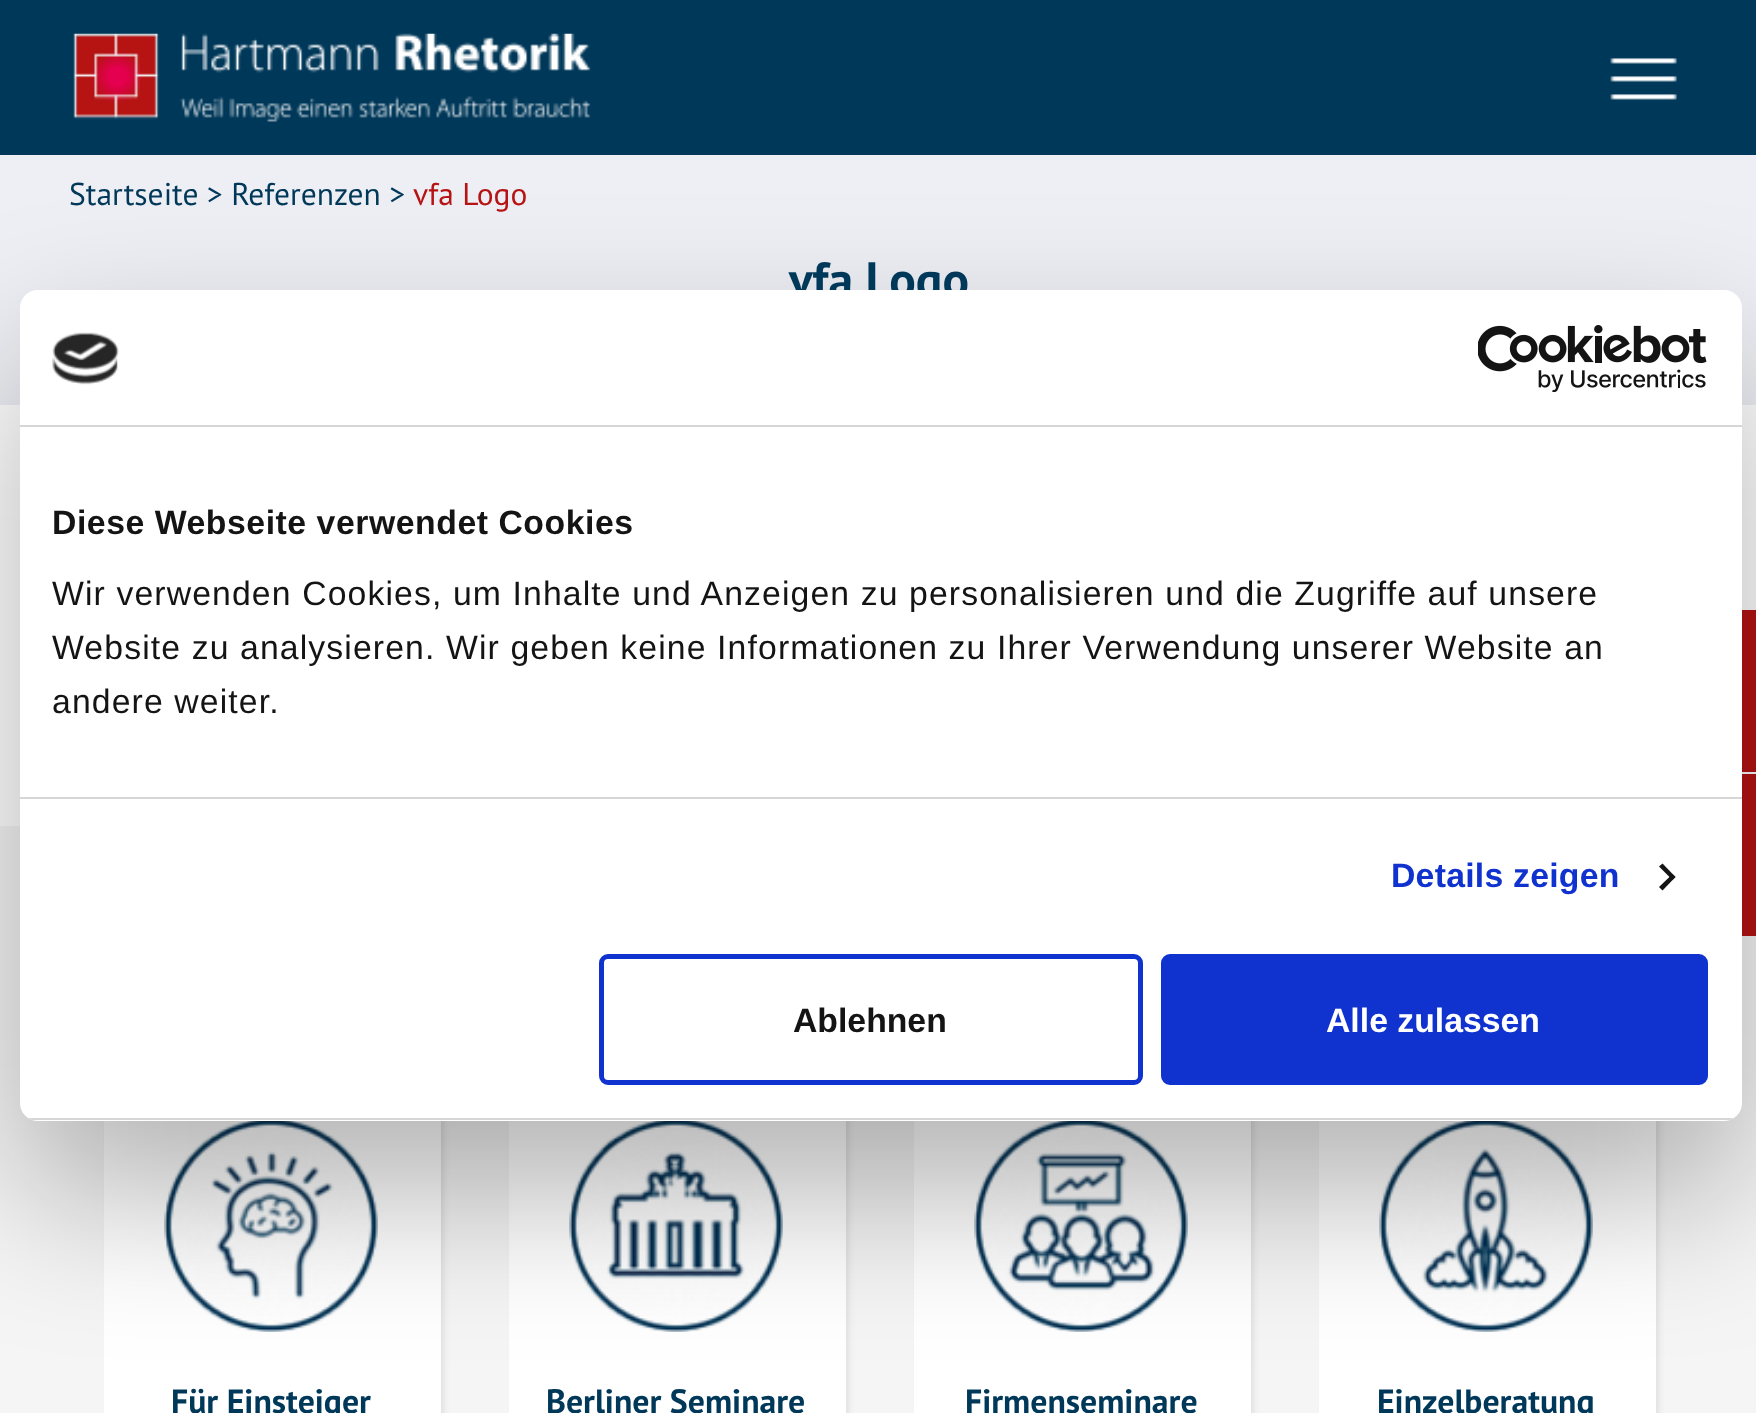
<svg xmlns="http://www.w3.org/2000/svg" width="1756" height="1413">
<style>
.a{font:31.5px PT Sans;fill:#003859}
.b{font:31.5px PT Sans;fill:#b61313}
.c{font:bold 49.5px PT Sans;fill:#003859}
.d{font:bold 33.75px Liberation Sans;letter-spacing:0.55px;fill:#141414}
.e{font:33.75px Liberation Sans;letter-spacing:1.12px;fill:#141414}
.f{font:bold 33.75px Liberation Sans;letter-spacing:0.25px;fill:#1032cf}
.g{font:bold 33.75px Liberation Sans;fill:#141414}
.h{font:bold 33.75px Liberation Sans;fill:#fff}
.i{font:bold 33.75px PT Sans;fill:#003859}
</style>
<defs>
<clipPath id="clip1"><rect x="20" y="290" width="1722" height="831" rx="18"/></clipPath>
</defs>
<rect width="100%" height="100%" fill="#fff"/>
<path fill="#003859" d="M0 0h1756v155H0z"/>
<image href="1.png" x="73" y="33" width="518" height="89"/>
<image href="2.png" x="1610" y="58" width="67" height="42"/>
<path fill="#eeeff4" d="M0 155h1756v250H0z"/>
<path fill="#b61313" d="M1742 610h14v162H1742z"/>
<path fill="#f5f5f5" d="M0 826h1756v587H0z"/>
<path fill="#b61313" d="M1742 774h14v162H1742z"/>
<path fill="#0000001a" filter="blur(3.5px)" d="M110 1069h333v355H110z"/>
<path fill="#fff" d="M104 1121h337v292H104z"/>
<image href="5.png" x="164" y="1121" width="214" height="211"/>
<path fill="#0000001a" filter="blur(3.5px)" d="M515 1069h333v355H515z"/>
<path fill="#fff" d="M509 1121h337v292H509z"/>
<image href="6.png" x="569" y="1121" width="214" height="211"/>
<path fill="#0000001a" filter="blur(3.5px)" d="M920 1069h333v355H920z"/>
<path fill="#fff" d="M914 1121h337v292H914z"/>
<image href="7.png" x="974" y="1121" width="214" height="211"/>
<path fill="#0000001a" filter="blur(3.5px)" d="M1325 1069h333v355H1325z"/>
<path fill="#fff" d="M1319 1121h337v292H1319z"/>
<image href="8.png" x="1379" y="1121" width="214" height="211"/>
<rect fill="#0000004d" filter="blur(76.5px)" x="20" y="362" width="1722" height="831" rx="18"/>
<text class="a" x="69" y="205">Startseite &gt; Referenzen &gt;</text>
<text class="b" x="413" y="205">vfa Logo</text>
<text class="c" x="789" y="297">vfa Logo</text>
<rect fill="#fff" x="20" y="290" width="1722" height="831" rx="18"/>
<path fill="#d6d6d6" d="M20 425h1722v2H20z"/>
<image href="3.png" x="52" y="332" width="67" height="53"/>
<image href="4.png" x="1478" y="325" width="229" height="67"/>
<path fill="#d6d6d6" d="M20 797h1722v2H20z"/>
<text class="d" x="52" y="534">Diese Webseite verwendet Cookies</text>
<text class="e" x="52" y="605">Wir verwenden Cookies, um Inhalte und Anzeigen zu personalisieren und die Zugriffe auf unsere</text>
<text class="e" x="52" y="659">Website zu analysieren. Wir geben keine Informationen zu Ihrer Verwendung unserer Website an</text>
<text class="e" x="52" y="713">andere weiter.</text>
<text class="f" x="1391" y="887">Details zeigen</text>
<path fill="#141414" d="M1662.5 863.5l13 13.5l-3 3l-13.5-13.5z"/>
<path fill="#141414" d="M1672.5 874l3 3l-13 13.5l-3.5-3.5z"/>
<g clip-path="url(#clip1)">
<path fill="#d6d6d6" d="M20 1118h1722v2H20z"/>
</g>
<rect fill="none" stroke="#1032cf" stroke-width="5" x="601.5" y="956.5" width="539" height="126" rx="6.5"/>
<text class="g" x="793" y="1032">Ablehnen</text>
<rect fill="#1032cf" stroke="#1032cf" stroke-width="5" x="1163.5" y="956.5" width="542" height="126" rx="6.5"/>
<text class="h" x="1326" y="1032">Alle zulassen</text>
<text class="i" x="171" y="1413">Für Einsteiger</text>
<text class="i" x="546" y="1413">Berliner Seminare</text>
<text class="i" x="965" y="1413">Firmenseminare</text>
<text class="i" x="1377" y="1413">Einzelberatung</text>
</svg>
